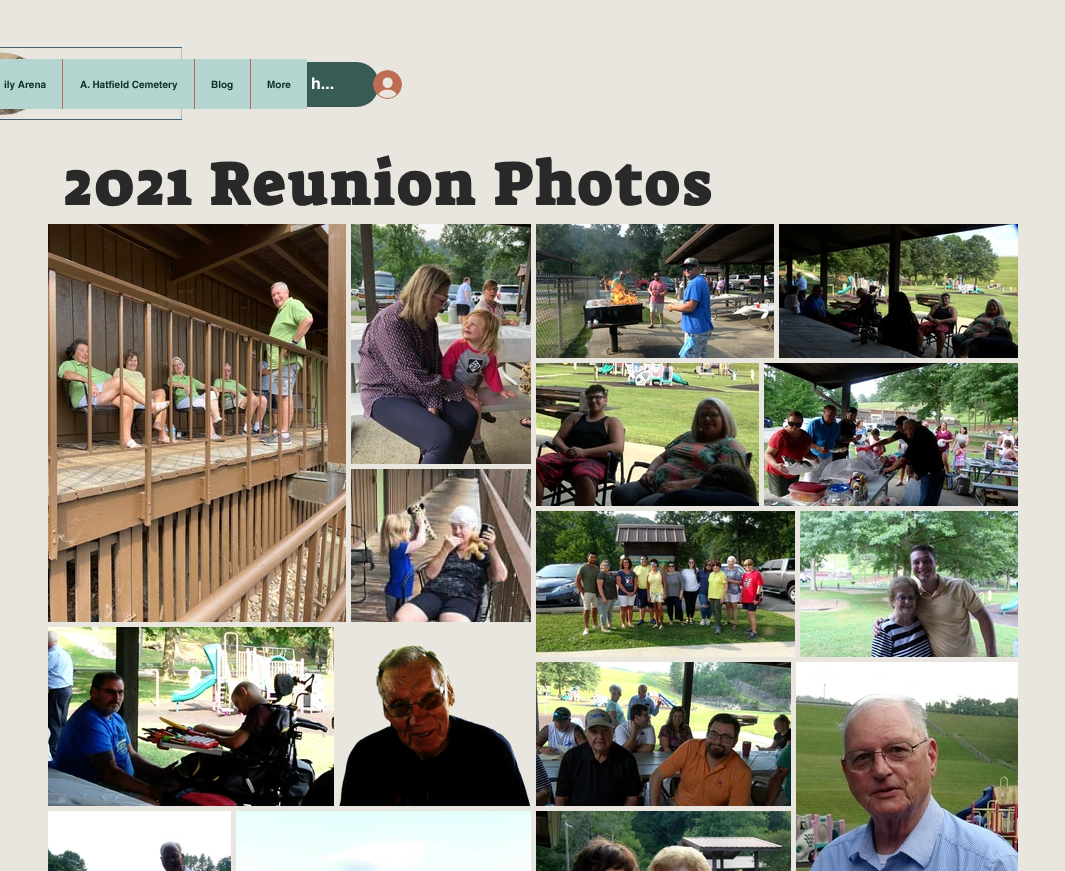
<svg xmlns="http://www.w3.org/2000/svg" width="1065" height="871">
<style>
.a{font:bold 10px helvetica;fill:#0b322b}
.b{font:bold 16px helvetica;fill:#fff}
.c{font:bold 61px Suez One;letter-spacing:3px;fill:#292929}
</style>
<rect width="100%" height="100%" fill="#e9e6df"/>
<image href="2.png" x="0" y="47" width="182" height="73"/>
<rect fill="#385b55" x="230" y="62" width="149" height="45" rx="22.5"/>
<path fill="#b5d6d0" d="M0 59h307v50H0z"/>
<path fill="#be6d54" d="M62 59h1v50H62z"/>
<path fill="#be6d54" d="M194 59h1v50H194z"/>
<path fill="#be6d54" d="M250 59h1v50H250z"/>
<image href="1.png" x="373" y="70" width="29" height="29"/>
<image href="3.png" x="48" y="224" width="298" height="398"/>
<image href="4.png" x="351" y="224" width="180" height="240"/>
<image href="5.png" x="536" y="224" width="238" height="134"/>
<image href="6.png" x="779" y="224" width="239" height="134"/>
<image href="7.png" x="536" y="363" width="223" height="143"/>
<image href="8.png" x="764" y="363" width="254" height="143"/>
<image href="9.png" x="351" y="469" width="180" height="153"/>
<image href="10.png" x="536" y="511" width="259" height="146"/>
<image href="11.png" x="800" y="511" width="218" height="146"/>
<image href="12.png" x="48" y="627" width="286" height="179"/>
<image href="13.png" x="339" y="645" width="192" height="161"/>
<image href="14.png" x="536" y="662" width="255" height="144"/>
<image href="15.png" x="796" y="662" width="222" height="209"/>
<image href="16.png" x="48" y="811" width="183" height="60"/>
<image href="17.png" x="236" y="811" width="295" height="60"/>
<image href="18.png" x="536" y="811" width="255" height="60"/>
<text class="a" x="4" y="88">ily Arena</text>
<text class="a" x="80" y="88">A. Hatfield Cemetery</text>
<text class="a" x="211" y="88">Blog</text>
<text class="a" x="267" y="88">More</text>
<text class="b" x="311" y="89">h...</text>
<text class="c" x="64" y="205">2021 Reunion Photos</text>
</svg>
